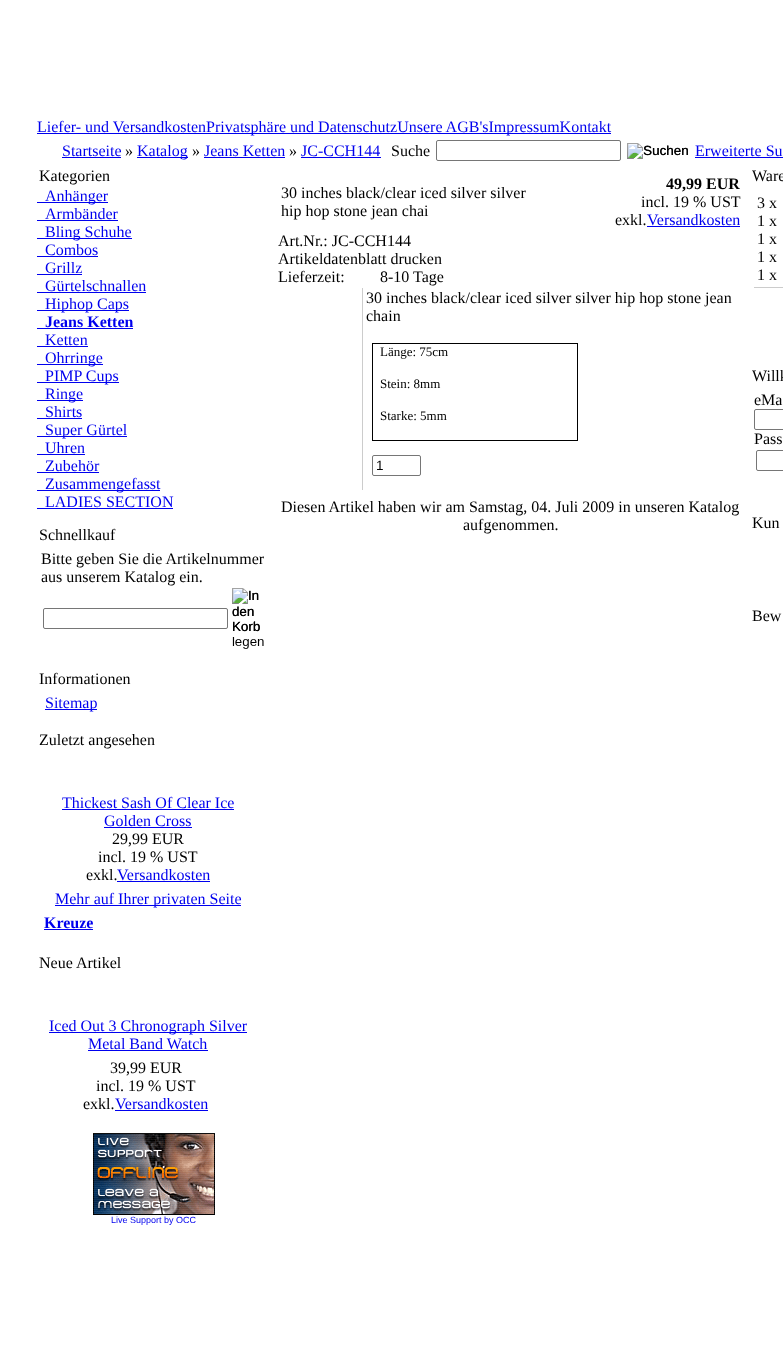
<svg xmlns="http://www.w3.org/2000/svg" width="783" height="1354">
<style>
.a{font:16px Liberation Serif;fill:#00e}
.b{font:16px Liberation Serif;fill:#000}
.c{font:13.5px Liberation Sans;fill:#000}
.d{font:bold 16px Liberation Serif;fill:#00e}
.e{font:9px Liberation Sans;fill:#00e}
.f{font:bold 16px Liberation Serif;fill:#000}
.g{font:13px Liberation Serif;fill:#000}
</style>
<rect width="100%" height="100%" fill="#fff"/>
<path fill="#00e" d="M37 133h574v1H37z"/>
<path fill="#00e" d="M62 157h59v1H62z"/>
<path fill="#00e" d="M137 157h51v1H137z"/>
<path fill="#00e" d="M204 157h81v1H204z"/>
<path fill="#00e" d="M301 157h80v1H301z"/>
<rect fill="none" stroke="#767676" x="436.5" y="140.5" width="184" height="20" rx="1.5"/>
<image href="1.png" x="627" y="143" width="61" height="16"/>
<path fill="#00e" d="M695 157h88v1H695z"/>
<path fill="#00e" d="M37 202h71v1H37z"/>
<path fill="#00e" d="M37 220h81v1H37z"/>
<path fill="#00e" d="M37 238h95v1H37z"/>
<path fill="#00e" d="M37 256h61v1H37z"/>
<path fill="#00e" d="M37 274h45v1H37z"/>
<path fill="#00e" d="M37 292h109v1H37z"/>
<path fill="#00e" d="M37 310h92v1H37z"/>
<path fill="#00e" d="M37 328h96v1H37z"/>
<path fill="#00e" d="M37 346h51v1H37z"/>
<path fill="#00e" d="M37 364h66v1H37z"/>
<path fill="#00e" d="M37 382h82v1H37z"/>
<path fill="#00e" d="M37 400h46v1H37z"/>
<path fill="#00e" d="M37 418h45v1H37z"/>
<path fill="#00e" d="M37 436h90v1H37z"/>
<path fill="#00e" d="M37 454h48v1H37z"/>
<path fill="#00e" d="M37 472h62v1H37z"/>
<path fill="#00e" d="M37 490h123v1H37z"/>
<path fill="#00e" d="M37 508h136v1H37z"/>
<rect fill="none" stroke="#767676" x="43.5" y="608.5" width="184" height="20" rx="1.5"/>
<image href="2.png" x="232" y="588" width="32" height="61"/>
<path fill="#00e" d="M45 709h52v1H45z"/>
<path fill="#00e" d="M62 809h172v1H62z"/>
<path fill="#00e" d="M104 827h88v1H104z"/>
<path fill="#00e" d="M117 881h93v1H117z"/>
<path fill="#00e" d="M55 905h186v1H55z"/>
<path fill="#00e" d="M44 929h49v1H44z"/>
<path fill="#00e" d="M49 1032h198v1H49z"/>
<path fill="#00e" d="M88 1050h120v1H88z"/>
<path fill="#00e" d="M115 1110h93v1H115z"/>
<image href="3.png" x="93" y="1133" width="122" height="82"/>
<path fill="#00e" d="M647 226h93v1H647z"/>
<path fill="#ccc" d="M362 288h1v202H362z"/>
<path fill="#000" d="M372 343h206v1H372z"/>
<path fill="#000" d="M577 343h1v98H577z"/>
<path fill="#000" d="M372 440h206v1H372z"/>
<path fill="#000" d="M372 343h1v98H372z"/>
<rect fill="none" stroke="#767676" x="372.5" y="455.5" width="48" height="20" rx="1.5"/>
<path fill="#ccc" d="M754 287h29v1H754z"/>
<rect fill="none" stroke="#767676" x="754.5" y="409.5" width="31" height="20" rx="1.5"/>
<rect fill="none" stroke="#767676" x="756.5" y="450.5" width="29" height="20" rx="1.5"/>
<text class="a" x="37" y="132">Liefer- und VersandkostenPrivatsphäre und DatenschutzUnsere AGB'sImpressumKontakt</text>
<text class="a" x="62" y="156">Startseite</text>
<text class="b" x="125" y="156">»</text>
<text class="a" x="137" y="156">Katalog</text>
<text class="b" x="192" y="156">»</text>
<text class="a" x="204" y="156">Jeans Ketten</text>
<text class="b" x="289" y="156">»</text>
<text class="a" x="301" y="156">JC-CCH144</text>
<text class="b" x="391" y="156">Suche</text>
<text class="c" x="643" y="155">Suchen</text>
<text class="a" x="695" y="156">Erweiterte Su</text>
<text class="b" x="39" y="181">Kategorien</text>
<text class="a" x="45" y="201">Anhänger</text>
<text class="a" x="45" y="219">Armbänder</text>
<text class="a" x="45" y="237">Bling Schuhe</text>
<text class="a" x="45" y="255">Combos</text>
<text class="a" x="45" y="273">Grillz</text>
<text class="a" x="45" y="291">Gürtelschnallen</text>
<text class="a" x="45" y="309">Hiphop Caps</text>
<text class="d" x="45" y="327">Jeans Ketten</text>
<text class="a" x="45" y="345">Ketten</text>
<text class="a" x="45" y="363">Ohrringe</text>
<text class="a" x="45" y="381">PIMP Cups</text>
<text class="a" x="45" y="399">Ringe</text>
<text class="a" x="45" y="417">Shirts</text>
<text class="a" x="45" y="435">Super Gürtel</text>
<text class="a" x="45" y="453">Uhren</text>
<text class="a" x="45" y="471">Zubehör</text>
<text class="a" x="45" y="489">Zusammengefasst</text>
<text class="a" x="45" y="507">LADIES SECTION</text>
<text class="b" x="39" y="540">Schnellkauf</text>
<text class="b" x="41" y="564">Bitte geben Sie die Artikelnummer</text>
<text class="b" x="41" y="582">aus unserem Katalog ein.</text>
<text class="c" x="248" y="600">In</text>
<text class="c" x="232" y="616">den</text>
<text class="c" x="232" y="631">Korb</text>
<text class="b" x="39" y="684">Informationen</text>
<text class="a" x="45" y="708">Sitemap</text>
<text class="b" x="39" y="745">Zuletzt angesehen</text>
<text class="a" x="62" y="808">Thickest Sash Of Clear Ice</text>
<text class="a" x="104" y="826">Golden Cross</text>
<text class="b" x="112" y="844">29,99 EUR</text>
<text class="b" x="98" y="862">incl. 19 % UST</text>
<text class="b" x="86" y="880">exkl.</text>
<text class="a" x="117" y="880">Versandkosten</text>
<text class="a" x="55" y="904">Mehr auf Ihrer privaten Seite</text>
<text class="d" x="44" y="928">Kreuze</text>
<text class="b" x="39" y="968">Neue Artikel</text>
<text class="a" x="49" y="1031">Iced Out 3 Chronograph Silver</text>
<text class="a" x="88" y="1049">Metal Band Watch</text>
<text class="b" x="110" y="1073">39,99 EUR</text>
<text class="b" x="96" y="1091">incl. 19 % UST</text>
<text class="b" x="83" y="1109">exkl.</text>
<text class="a" x="115" y="1109">Versandkosten</text>
<text class="e" x="111" y="1223">Live Support by OCC</text>
<text class="b" x="281" y="198">30 inches black/clear iced silver silver</text>
<text class="b" x="281" y="216">hip hop stone jean chai</text>
<text class="f" x="666" y="189">49,99 EUR</text>
<text class="b" x="641" y="207">incl. 19 % UST</text>
<text class="b" x="615" y="225">exkl.</text>
<text class="a" x="647" y="225">Versandkosten</text>
<text class="b" x="278" y="246">Art.Nr.: JC-CCH144</text>
<text class="b" x="278" y="264">Artikeldatenblatt drucken</text>
<text class="b" x="278" y="282">Lieferzeit:</text>
<text class="b" x="380" y="282">8-10 Tage</text>
<text class="b" x="366" y="303">30 inches black/clear iced silver silver hip hop stone jean</text>
<text class="b" x="366" y="321">chain</text>
<text class="g" x="380" y="356">Länge: 75cm</text>
<text class="g" x="380" y="388">Stein: 8mm</text>
<text class="g" x="380" y="420">Starke: 5mm</text>
<text class="c" x="376" y="470">1</text>
<text class="b" x="281" y="512">Diesen Artikel haben wir am Samstag, 04. Juli 2009 in unseren Katalog</text>
<text class="b" x="463" y="530">aufgenommen.</text>
<text class="b" x="752" y="181">Ware</text>
<text class="b" x="757" y="208">3 x</text>
<text class="b" x="757" y="226">1 x</text>
<text class="b" x="757" y="244">1 x</text>
<text class="b" x="757" y="262">1 x</text>
<text class="b" x="757" y="280">1 x</text>
<text class="b" x="752" y="381">Willk</text>
<text class="b" x="754" y="405">eMa</text>
<text class="b" x="754" y="444">Pass</text>
<text class="b" x="752" y="528">Kun</text>
<text class="b" x="752" y="621">Bew</text>
</svg>
